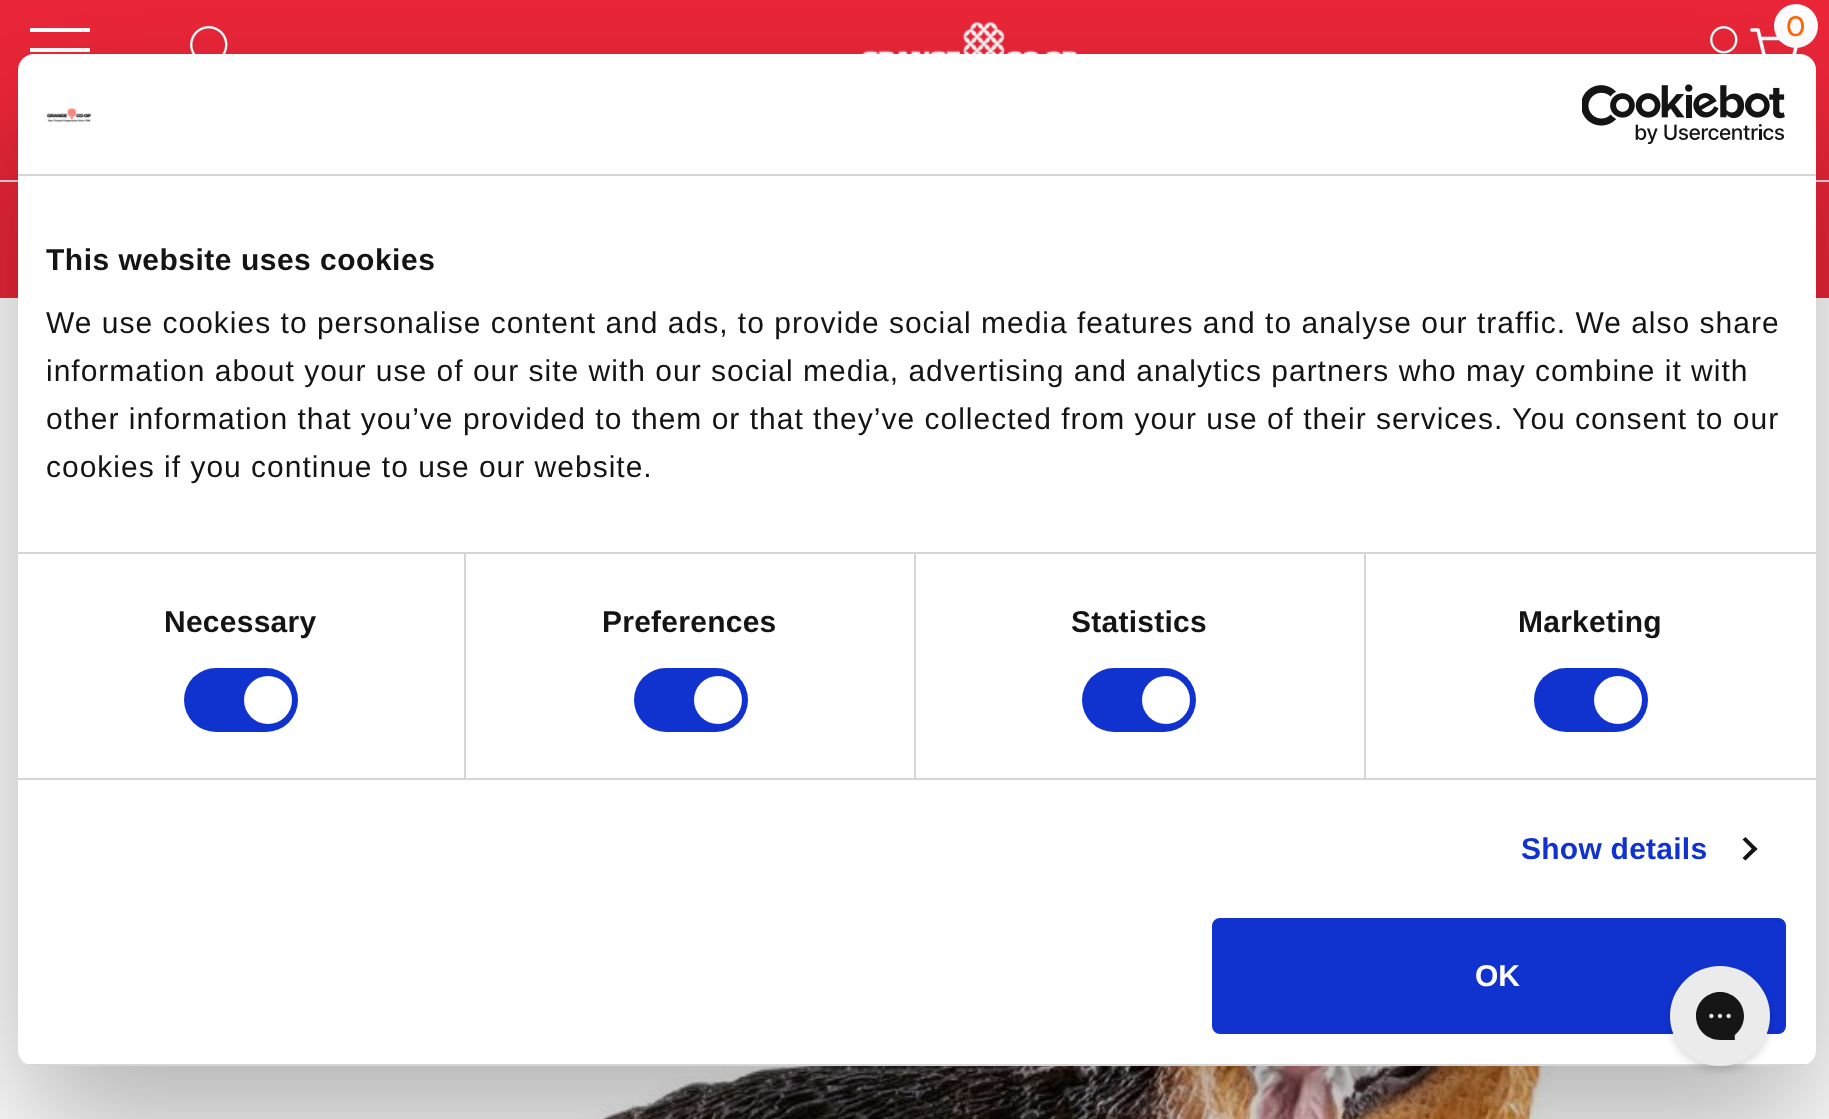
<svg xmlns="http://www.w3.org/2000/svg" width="1829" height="1119">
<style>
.a{font:500 28px DM Sans;fill:#fd6506}
.b{font:bold 30px Liberation Sans;letter-spacing:0.5px;fill:#141414}
.c{font:30px Liberation Sans;letter-spacing:1px;fill:#141414}
.d{font:bold 30px Liberation Sans;letter-spacing:0.25px;fill:#141414}
.e{font:bold 30px Liberation Sans;letter-spacing:0.25px;fill:#1032cf}
.f{font:bold 30px Liberation Sans;fill:#fff}
</style>
<defs>
<clipPath id="clip1"><rect x="18" y="54" width="1798" height="1012" rx="16"/></clipPath>
</defs>
<rect width="100%" height="100%" fill="#fff"/>
<path fill="#ec2639" d="M0 0h1829v180H0z"/>
<path fill="#fff" d="M30 48h60v4H30z"/>
<path fill="#fff" d="M30 28h60v4H30z"/>
<image href="1.png" x="190" y="26" width="38" height="28"/>
<image href="2.png" x="862" y="21" width="216" height="33"/>
<image href="3.png" x="1709" y="26" width="29" height="28"/>
<image href="4.png" x="1750" y="28" width="48" height="26"/>
<circle fill="#fff" cx="1796" cy="26" r="22"/>
<path fill="#ec2639" d="M0 182h1829v116H0z"/>
<path fill="#ddd" d="M0 180h1829v2H0z"/>
<image href="5.png" x="572" y="1066" width="1007" height="53"/>
<rect fill="#0000004d" filter="blur(68px)" x="18" y="118" width="1798" height="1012" rx="16"/>
<rect fill="#fff" x="18" y="54" width="1798" height="1012" rx="16"/>
<path fill="#d6d6d6" d="M18 174h1798v2H18z"/>
<image href="6.png" x="46" y="108" width="45" height="15"/>
<image href="7.png" x="1582" y="84" width="203" height="60"/>
<path fill="#d6d6d6" d="M18 552h1798v2H18z"/>
<path fill="#d6d6d6" d="M18 778h1798v2H18z"/>
<path fill="#d6d6d6" d="M464 554h2v224H464z"/>
<rect fill="#1032cf" x="184" y="668" width="114" height="64" rx="32"/>
<circle fill="#fff" cx="268" cy="700" r="24"/>
<path fill="#d6d6d6" d="M914 554h2v224H914z"/>
<rect fill="#1032cf" x="634" y="668" width="114" height="64" rx="32"/>
<circle fill="#fff" cx="718" cy="700" r="24"/>
<path fill="#d6d6d6" d="M1364 554h2v224H1364z"/>
<rect fill="#1032cf" x="1082" y="668" width="114" height="64" rx="32"/>
<circle fill="#fff" cx="1166" cy="700" r="24"/>
<rect fill="#1032cf" x="1534" y="668" width="114" height="64" rx="32"/>
<circle fill="#fff" cx="1618" cy="700" r="24"/>
<path fill="#141414" d="M1745.5 837l12 12l-3 2.5l-12-12z"/>
<path fill="#141414" d="M1754.5 846l3 3l-12 11.5l-3-2.5z"/>
<g clip-path="url(#clip1)">
<path fill="#d6d6d6" d="M18 1064h1798v2H18z"/>
</g>
<rect fill="#1032cf" stroke="#1032cf" stroke-width="4" x="1214" y="920" width="570" height="112" rx="6"/>
<image href="8.png" x="1666" y="966" width="108" height="108"/>
<text class="a" x="1786" y="36">0</text>
<text class="b" x="46" y="270">This website uses cookies</text>
<text class="c" x="46" y="333">We use cookies to personalise content and ads, to provide social media features and to analyse our traffic. We also share</text>
<text class="c" x="46" y="381">information about your use of our site with our social media, advertising and analytics partners who may combine it with</text>
<text class="c" x="46" y="429">other information that you’ve provided to them or that they’ve collected from your use of their services. You consent to our</text>
<text class="c" x="46" y="477">cookies if you continue to use our website.</text>
<text class="d" x="164" y="632">Necessary</text>
<text class="d" x="602" y="632">Preferences</text>
<text class="d" x="1071" y="632">Statistics</text>
<text class="d" x="1518" y="632">Marketing</text>
<text class="e" x="1521" y="859">Show details</text>
<text class="f" x="1475" y="986">OK</text>
</svg>
